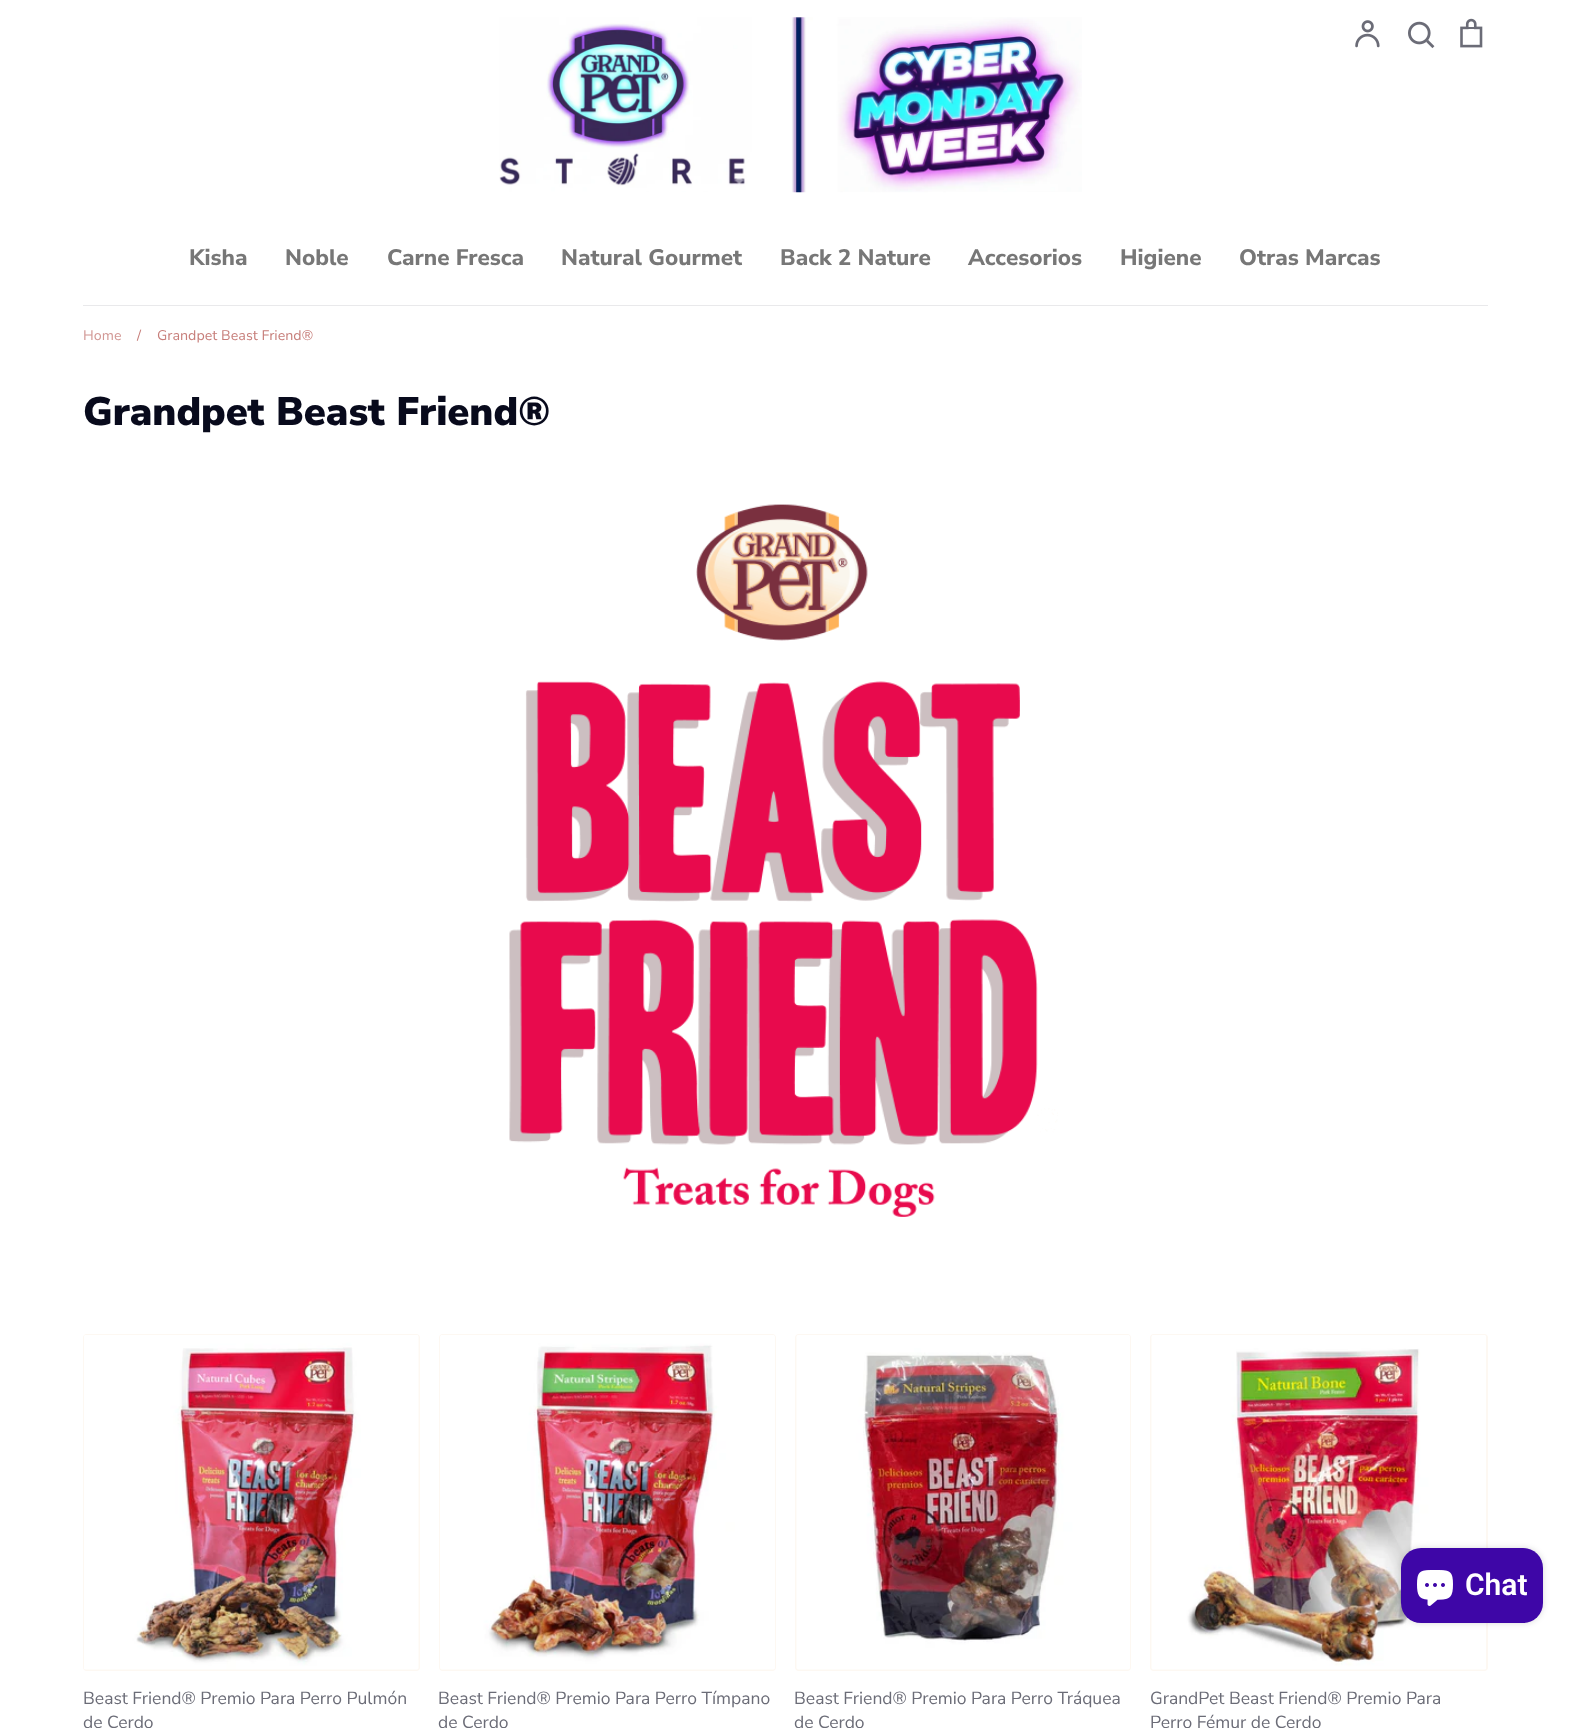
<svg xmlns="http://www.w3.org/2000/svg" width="1569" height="1728">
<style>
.a{font:800 22.5px Nunito Sans;fill:#777}
.b{font:14px 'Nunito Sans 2';fill:#d29895}
.c{font:14px 'Nunito Sans 2';fill:#c77e7a}
.d{font:900 39.75px Nunito Sans;fill:#080a1c}
.e{font:17.5px Nunito Sans;fill:#6b6c77}
.f{font:600 30px Roboto;fill:#fff}
</style>
<rect width="100%" height="100%" fill="#fff"/>
<image href="1.png" x="499" y="17" width="583" height="176"/>
<image href="2.png" x="1355" y="20" width="25" height="28"/>
<image href="3.png" x="1408" y="21" width="27" height="28"/>
<image href="4.png" x="1460" y="18" width="23" height="30"/>
<path fill="#e9e9eb" d="M83 305h1405v1H83z"/>
<image href="5.png" x="509" y="504" width="549" height="713"/>
<rect fill="#fdf8f2" x="83" y="1334" width="337" height="337" rx="4"/>
<image href="6.png" x="84" y="1335" width="335" height="335"/>
<rect fill="#fdf8f2" x="439" y="1334" width="337" height="337" rx="4"/>
<image href="7.png" x="440" y="1335" width="335" height="335"/>
<rect fill="#fdf8f2" x="795" y="1334" width="336" height="337" rx="4"/>
<image href="8.png" x="796" y="1335" width="334" height="335"/>
<rect fill="#fdf8f2" x="1150" y="1334" width="338" height="337" rx="4"/>
<image href="9.png" x="1151" y="1335" width="335" height="335"/>
<rect fill="#00000026" filter="blur(3px)" x="1401" y="1548" width="142" height="75" rx="20"/>
<rect fill="#3e06a7" x="1401" y="1548" width="142" height="75" rx="20"/>
<image href="10.png" x="1417" y="1570" width="36" height="36"/>
<text class="a" x="189" y="265">Kisha</text>
<text class="a" x="285" y="265">Noble</text>
<text class="a" x="387" y="265">Carne Fresca</text>
<text class="a" x="561" y="265">Natural Gourmet</text>
<text class="a" x="780" y="265">Back 2 Nature</text>
<text class="a" x="968" y="265">Accesorios</text>
<text class="a" x="1120" y="265">Higiene</text>
<text class="a" x="1239" y="265">Otras Marcas</text>
<text class="b" x="83" y="340">Home</text>
<text class="c" x="137" y="340">/</text>
<text class="c" x="157" y="340">Grandpet Beast Friend®</text>
<text class="d" x="83" y="425">Grandpet Beast Friend®</text>
<text class="e" x="83" y="1704">Beast Friend® Premio Para Perro Pulmón</text>
<text class="e" x="83" y="1728">de Cerdo</text>
<text class="e" x="438" y="1704">Beast Friend® Premio Para Perro Tímpano</text>
<text class="e" x="438" y="1728">de Cerdo</text>
<text class="e" x="794" y="1704">Beast Friend® Premio Para Perro Tráquea</text>
<text class="e" x="794" y="1728">de Cerdo</text>
<text class="e" x="1150" y="1704">GrandPet Beast Friend® Premio Para</text>
<text class="e" x="1150" y="1728">Perro Fémur de Cerdo</text>
<text class="f" x="1465" y="1595">Chat</text>
</svg>
